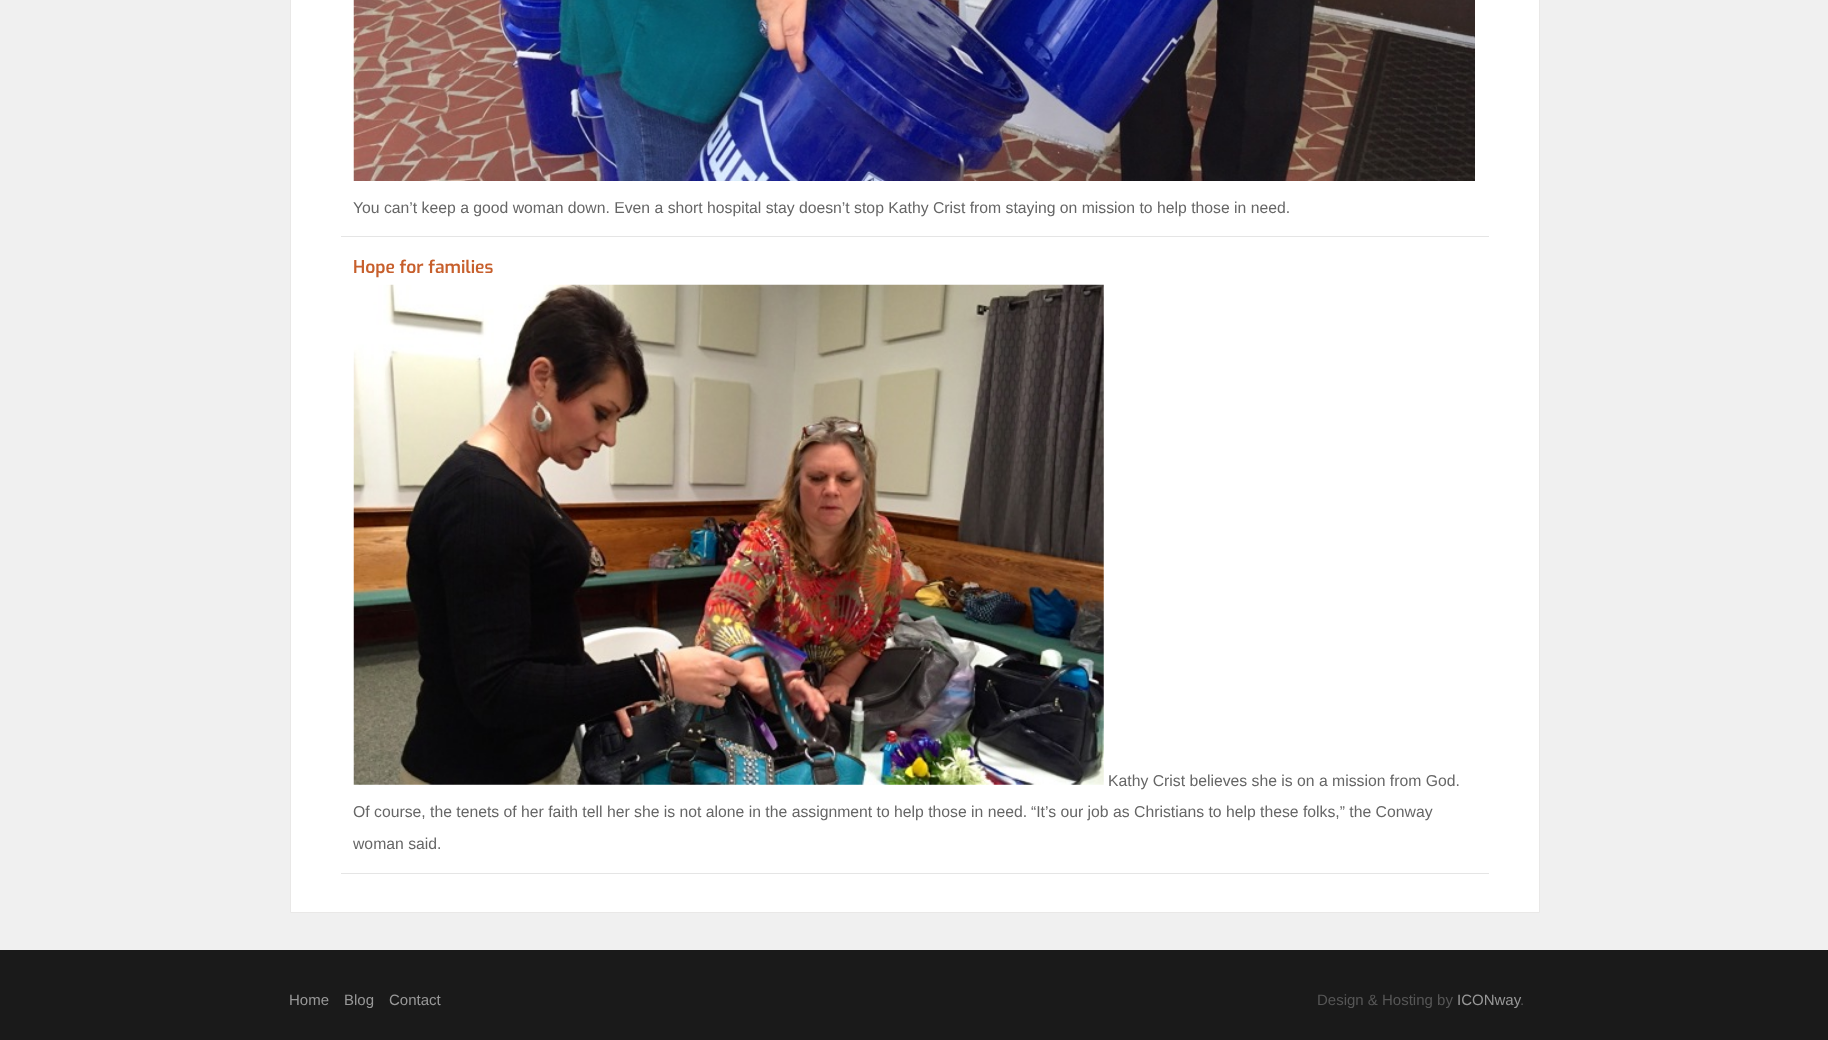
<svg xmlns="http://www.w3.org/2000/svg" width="1828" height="1040">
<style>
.a{font:15.75px Liberation Sans;fill:#666}
.b{font:600 17.5px Exo;fill:#c75f2c}
.c{font:15px Liberation Sans;fill:#989898}
.d{font:15px Liberation Sans;fill:#565656}
</style>
<rect width="100%" height="100%" fill="#1a1a1a"/>
<path fill="#f0f0f0" d="M0 0h1828v950H0z"/>
<path fill="#fff" stroke="#e9e8e7" d="M290.5 -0.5h1249v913H290.5z"/>
<path fill="#e5e5e5" d="M341 236h1148v1H341z"/>
<image href="1.png" x="353" y="0" width="1122" height="181"/>
<path fill="#e5e5e5" d="M341 873h1148v1H341z"/>
<image href="2.png" x="353" y="284" width="751" height="501"/>
<text class="a" x="353" y="213">You can’t keep a good woman down. Even a short hospital stay doesn’t stop Kathy Crist from staying on mission to help those in need.</text>
<text class="b" x="353" y="273">Hope for families</text>
<text class="a" x="1108" y="786">Kathy Crist believes she is on a mission from God.</text>
<text class="a" x="353" y="817">Of course, the tenets of her faith tell her she is not alone in the assignment to help those in need.</text>
<text class="a" x="1031" y="817">“It’s our job as Christians to help these folks,” the Conway</text>
<text class="a" x="353" y="849">woman said.</text>
<text class="c" x="289" y="1005">Home</text>
<text class="c" x="344" y="1005">Blog</text>
<text class="c" x="389" y="1005">Contact</text>
<text class="d" x="1317" y="1005">Design &amp; Hosting by</text>
<text class="c" x="1457" y="1005">ICONway</text>
<text class="d" x="1520" y="1005">.</text>
</svg>
